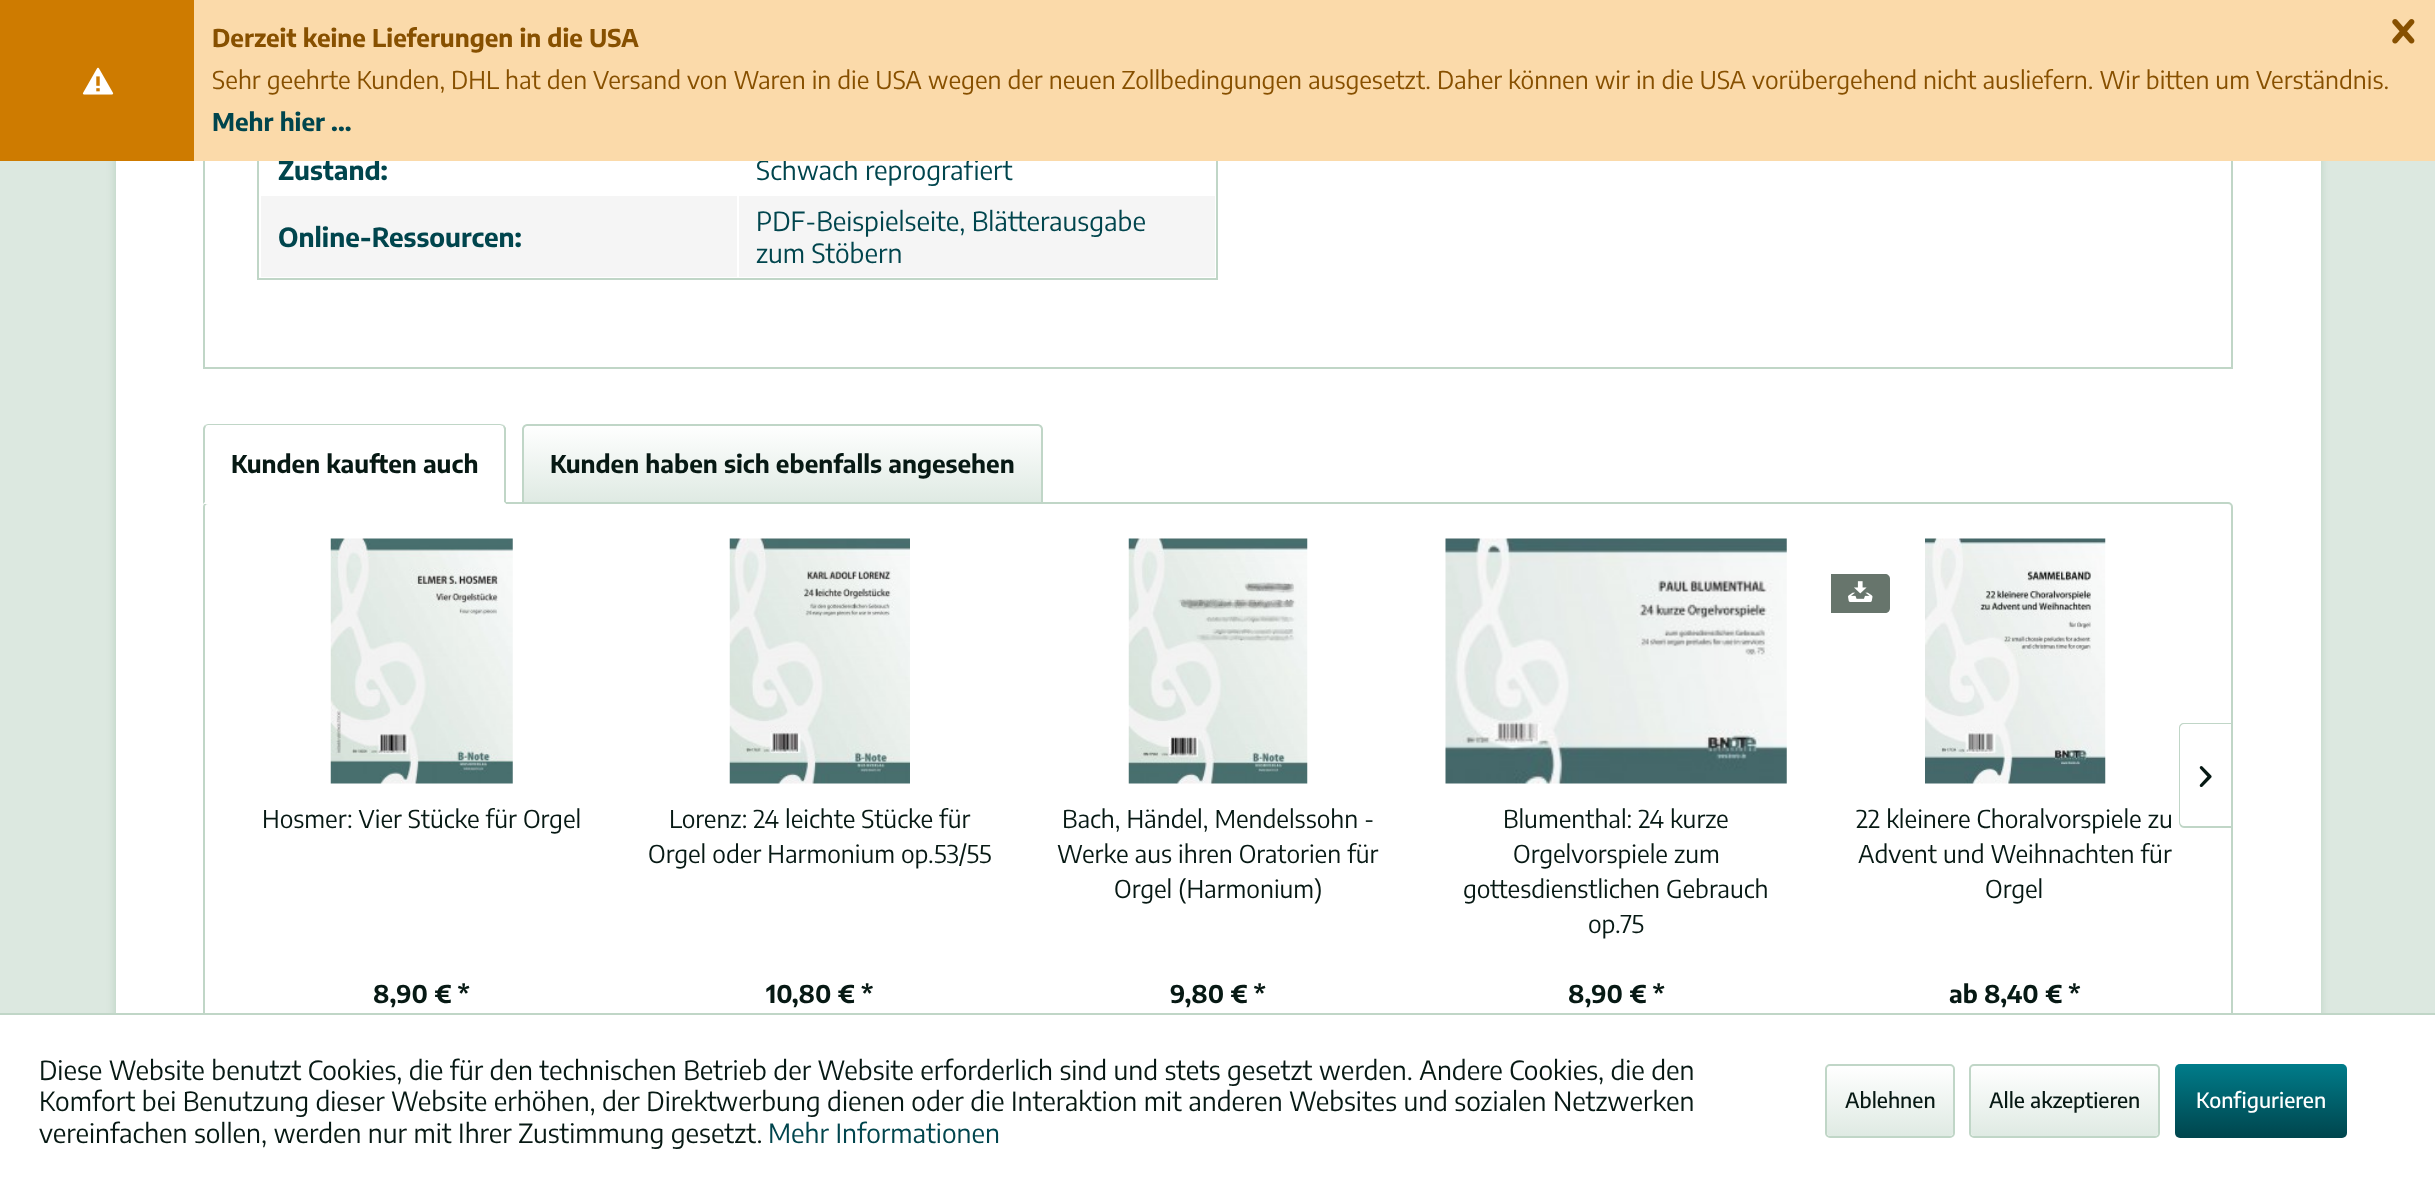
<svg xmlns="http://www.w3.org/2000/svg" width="2435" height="1185">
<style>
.a{font:bold 26.25px Encode Sans;fill:#00454d}
.b{font:26.25px Encode Sans;fill:#00454d}
.c{font:bold 24.5px Encode Sans;fill:#00454d}
.d{font:24.5px Encode Sans;fill:#875000}
.e{font:bold 24.5px Encode Sans;fill:#875000}
.f{font:bold 24.5px Encode Sans;fill:#071914}
.g{font:24.5px Encode Sans;fill:#071914}
.h{font:26.25px Encode Sans;fill:#071914}
.i{font:500 21px Encode Sans;fill:#071914}
.j{font:500 21px Encode Sans;fill:#fff}
</style>
<defs>
<linearGradient id="g1" gradientUnits="userSpaceOnUse" x1="782" y1="425" x2="782" y2="502"><stop offset="0" stop-color="#fff"/><stop offset="1" stop-color="#dfeae3"/></linearGradient>
<linearGradient id="g2" gradientUnits="userSpaceOnUse" x1="1890" y1="1066" x2="1890" y2="1136"><stop offset="0" stop-color="#fff"/><stop offset="1" stop-color="#dfeae3"/></linearGradient>
<linearGradient id="g3" gradientUnits="userSpaceOnUse" x1="2064" y1="1066" x2="2064" y2="1136"><stop offset="0" stop-color="#fff"/><stop offset="1" stop-color="#dfeae3"/></linearGradient>
<linearGradient id="g4" gradientUnits="userSpaceOnUse" x1="2261" y1="1064" x2="2261" y2="1138"><stop offset="0" stop-color="#007c8a"/><stop offset="1" stop-color="#00454d"/></linearGradient>
</defs>
<rect width="100%" height="100%" fill="#dce8e0"/>
<path fill="#c0d6c7" filter="blur(3.5px)" d="M114 -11h2208v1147H114z"/>
<path fill="#ce7b00" d="M0 0h194v161H0z"/>
<image href="1.png" x="82" y="67" width="32" height="28"/>
<path fill="#fff" d="M116 161h2205v852H116z"/>
<path fill="none" stroke="#c0d6c7" stroke-width="2" d="M204 -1h2028v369H204z"/>
<path fill="none" stroke="#c0d6c7" stroke-width="2" d="M258 -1h959v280H258z"/>
<path fill="#f5f5f5" d="M261 196h476v81H261z"/>
<path fill="#f5f5f5" d="M739 196h476v81H739z"/>
<rect fill="none" stroke="#c0d6c7" stroke-width="2" x="204" y="503" width="2028" height="543" rx="4"/>
<path fill="#fff" d="M208 424h293c3 0 5 2 5 5v75h-303v-75c0-3 2-5 5-5z"/>
<path fill="#c0d6c7" d="M208 424l-3 1l1 1c0 0 1-1 2-1h292c1 0 2 1 3 1l1-1l-4-1z"/>
<path fill="#c0d6c7" d="M504 425l2 3v76l-2-2v-73l-1-3z"/>
<path fill="#fff" d="M506 504l-2-2h-299l-2 2z"/>
<path fill="#c0d6c7" d="M203 504l2-2v-73l1-3l-1-1c-1 1-2 2-2 4z"/>
<path fill="url(#g1)" d="M527 425h510c2 0 4 2 4 4v73h-518v-73c0-2 2-4 4-4z"/>
<path fill="none" stroke="#c0d6c7" stroke-width="2" d="M527 425h511c2 0 4 2 4 4v74h-519v-74c0-2 2-4 4-4z"/>
<path fill="#c0d6c7" fill-rule="evenodd" d="M2184 723h47v105h-47c-3 0-5-3-5-6v-94c0-3 2-5 5-5zm0 1h47v102h-47c-2 0-4-2-4-4v-94c0-2 2-4 4-4z"/>
<image href="3.png" x="2199" y="766" width="13" height="21"/>
<image href="4.png" x="330" y="538" width="183" height="246"/>
<image href="5.png" x="729" y="538" width="181" height="246"/>
<image href="6.png" x="1128" y="538" width="180" height="246"/>
<image href="7.png" x="1445" y="538" width="342" height="246"/>
<path fill="#67756c" d="M1831 574h54c3 0 5 2 5 5v29c0 3-2 5-5 5h-54z"/>
<image href="8.png" x="1848" y="581" width="25" height="21"/>
<image href="9.png" x="1925" y="538" width="181" height="246"/>
<path fill="#fff" d="M0 1015h2435v170H0z"/>
<path fill="#c0d6c7" d="M0 1013h2435v2H0z"/>
<rect fill="url(#g2)" x="1827" y="1066" width="126" height="70" rx="4"/>
<rect fill="none" stroke="#c0d6c7" stroke-width="2" x="1826" y="1065" width="128" height="72" rx="4"/>
<rect fill="url(#g3)" x="1971" y="1066" width="187" height="70" rx="4"/>
<rect fill="none" stroke="#c0d6c7" stroke-width="2" x="1970" y="1065" width="189" height="72" rx="4"/>
<rect fill="url(#g4)" x="2175" y="1064" width="172" height="74" rx="5"/>
<text class="a" x="278" y="180">Zustand:</text>
<text class="b" x="756" y="180">Schwach reprografiert</text>
<path fill="#fbdaaa" d="M194 0h2241v161H194z"/>
<image href="2.png" x="2392" y="19" width="23" height="25"/>
<text class="c" x="212" y="131">Mehr hier ...</text>
<text class="d" x="212" y="89">Sehr geehrte Kunden, DHL hat den Versand von Waren in die USA wegen der neuen Zollbedingungen ausgesetzt. Daher können wir in die USA vorübergehend nicht ausliefern. Wir bitten um Verständnis.</text>
<text class="e" x="212" y="47">Derzeit keine Lieferungen in die USA</text>
<text class="a" x="278" y="247">Online-Ressourcen:</text>
<text class="b" x="756" y="231">PDF-Beispielseite, Blätterausgabe</text>
<text class="b" x="756" y="263">zum Stöbern</text>
<text class="f" x="231" y="473">Kunden kauften auch</text>
<text class="f" x="550" y="473">Kunden haben sich ebenfalls angesehen</text>
<text class="g" x="262" y="828">Hosmer: Vier Stücke für Orgel</text>
<text class="f" x="373" y="1003">8,90 € *</text>
<text class="g" x="669" y="828">Lorenz: 24 leichte Stücke für</text>
<text class="g" x="648" y="863">Orgel oder Harmonium op.53/55</text>
<text class="f" x="766" y="1003">10,80 € *</text>
<text class="g" x="1062" y="828">Bach, Händel, Mendelssohn -</text>
<text class="g" x="1057" y="863">Werke aus ihren Oratorien für</text>
<text class="g" x="1114" y="898">Orgel (Harmonium)</text>
<text class="f" x="1170" y="1003">9,80 € *</text>
<text class="g" x="1503" y="828">Blumenthal: 24 kurze</text>
<text class="g" x="1513" y="863">Orgelvorspiele zum</text>
<text class="g" x="1463" y="898">gottesdienstlichen Gebrauch</text>
<text class="g" x="1588" y="933">op.75</text>
<text class="f" x="1568" y="1003">8,90 € *</text>
<text class="g" x="1856" y="828">22 kleinere Choralvorspiele zu</text>
<text class="g" x="1858" y="863">Advent und Weihnachten für</text>
<text class="g" x="1985" y="898">Orgel</text>
<text class="f" x="1949" y="1003">ab 8,40 € *</text>
<text class="h" x="39" y="1080">Diese Website benutzt Cookies, die für den technischen Betrieb der Website erforderlich sind und stets gesetzt werden. Andere Cookies, die den</text>
<text class="h" x="39" y="1111">Komfort bei Benutzung dieser Website erhöhen, der Direktwerbung dienen oder die Interaktion mit anderen Websites und sozialen Netzwerken</text>
<text class="h" x="39" y="1143">vereinfachen sollen, werden nur mit Ihrer Zustimmung gesetzt.</text>
<text class="b" x="768" y="1143">Mehr Informationen</text>
<text class="i" x="1845" y="1108">Ablehnen</text>
<text class="i" x="1989" y="1108">Alle akzeptieren</text>
<text class="j" x="2196" y="1108">Konfigurieren</text>
</svg>
